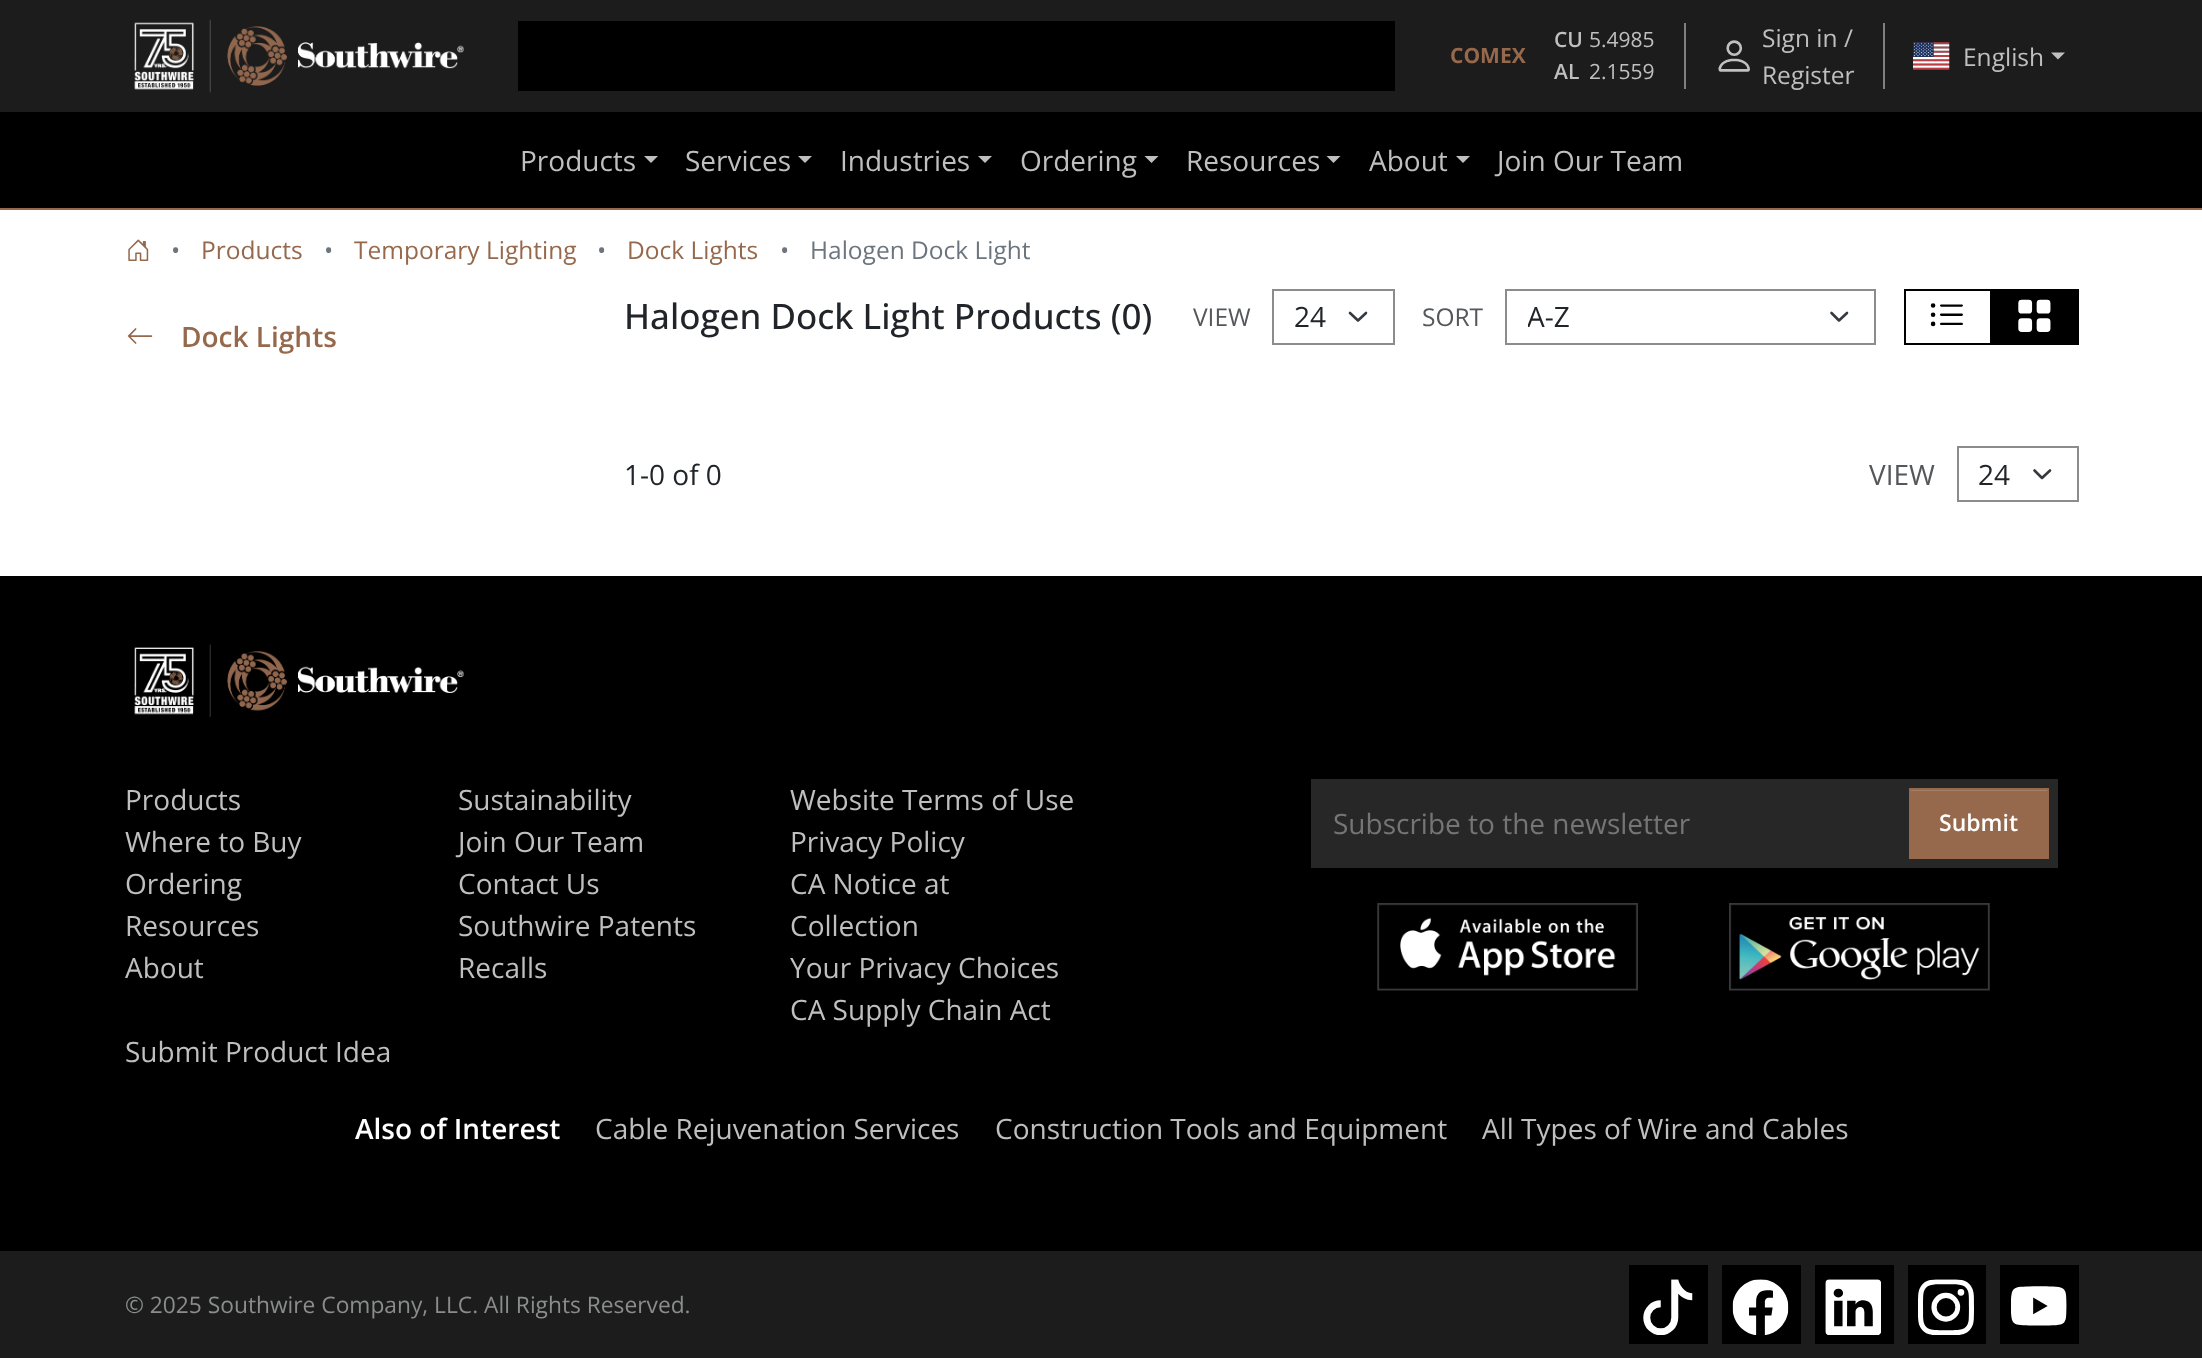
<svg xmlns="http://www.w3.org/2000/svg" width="2202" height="1358">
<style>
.a{font:bold 21px Open Sans;fill:#96694c}
.b{font:600 21px Open Sans;fill:#bfbfbf}
.c{font:21px Open Sans;fill:#bfbfbf}
.d{font:24.5px Open Sans;fill:#bfbfbf}
.e{font:28px Open Sans;fill:#bfbfbf}
.f{font:24.5px Open Sans;fill:#6c757d}
.g{font:24.5px Open Sans;fill:#96694c}
.h{font:600 28px Open Sans;fill:#96694c}
.i{font:500 35px Open Sans;fill:#212529}
.j{font:24.5px Open Sans;fill:#55575b}
.k{font:28px Open Sans;fill:#212529}
.l{font:28px Open Sans;fill:#55575b}
.m{font:28px Open Sans;fill:#757575}
.n{font:600 23px Open Sans;fill:#fff}
.o{font:600 28px Open Sans;fill:#fff}
.p{font:22.75px Open Sans;fill:#8a8c8d}
</style>
<defs>
<clipPath id="clip1"><path d="M1528 296h283v42H1528z"/></clipPath>
</defs>
<rect width="100%" height="100%" fill="#fff"/>
<path fill="#000" d="M0 112h2202v96H0z"/>
<path fill="#1c1c1c" d="M0 0h2202v112H0z"/>
<image href="1.png" x="134" y="19" width="330" height="74"/>
<path fill="#000" d="M518 21h877v70H518z"/>
<path fill="#808080" d="M1684 23h2v66H1684z"/>
<image href="2.png" x="1718" y="40" width="32" height="32"/>
<path fill="#808080" d="M1883 23h2v66H1883z"/>
<image href="3.png" x="1913" y="42" width="37" height="28"/>
<path fill="#c0c0c0" d="M2051 52.5h14l-7 7z"/>
<path fill="#96694c" d="M0 208h2202v2H0z"/>
<path fill="#bfbfbf" d="M644 156h14l-7 7z"/>
<path fill="#bfbfbf" d="M798 156h14l-7 7z"/>
<path fill="#bfbfbf" d="M978 156h14l-7 7z"/>
<path fill="#bfbfbf" d="M1144.5 156h14l-7 7z"/>
<path fill="#bfbfbf" d="M1326.5 156h14l-7 7z"/>
<path fill="#bfbfbf" d="M1456 156h14l-7 7z"/>
<image href="4.png" x="128" y="239" width="21" height="22"/>
<image href="5.png" x="127" y="328" width="26" height="16"/>
<path fill="none" stroke="#343a40" stroke-width="2.6" stroke-linecap="round" stroke-linejoin="round" d="M1350 313l8 7.5l8-7.5"/>
<path fill="none" stroke="#8a8c8d" stroke-width="2" d="M1273 290h121v54H1273z"/>
<path fill="none" stroke="#343a40" stroke-width="2.6" stroke-linecap="round" stroke-linejoin="round" d="M1831.5 313l7.5 7.5l8-7.5"/>
<path fill="none" stroke="#8a8c8d" stroke-width="2" d="M1506 290h369v54H1506z"/>
<path fill="none" stroke="#000" stroke-width="2" d="M1905 290h86v54H1905z"/>
<image href="6.png" x="1930" y="303" width="33" height="24"/>
<path fill="#000" d="M1992 289h87v56H1992z"/>
<image href="7.png" x="2018" y="299" width="33" height="33"/>
<path fill="none" stroke="#343a40" stroke-width="2.6" stroke-linecap="round" stroke-linejoin="round" d="M2034.5 470.5l7.5 7.5l8-7.5"/>
<path fill="none" stroke="#8a8c8d" stroke-width="2" d="M1958 447h120v54H1958z"/>
<path fill="#000" d="M0 576h2202v675H0z"/>
<image href="8.png" x="134" y="644" width="330" height="73"/>
<path fill="#272728" d="M1311 779h747v89H1311z"/>
<path fill="#96694c" d="M1911 791h136v66H1911z"/>
<path fill="#a68067" d="M1911 790h137v1H1911z"/>
<path fill="none" stroke="#96694c" stroke-width="2" d="M1910 789h138v69H1910z"/>
<image href="9.png" x="1377" y="903" width="261" height="88"/>
<image href="10.png" x="1729" y="903" width="261" height="88"/>
<path fill="#1c1c1c" d="M0 1251h2202v107H0z"/>
<path fill="#000" d="M1629 1265h79v79H1629z"/>
<image href="11.png" x="1643" y="1279" width="50" height="56"/>
<path fill="#000" d="M1722 1265h79v79H1722z"/>
<image href="12.png" x="1732" y="1279" width="57" height="56"/>
<path fill="#000" d="M1815 1265h79v79H1815z"/>
<image href="13.png" x="1825" y="1279" width="56" height="56"/>
<path fill="#000" d="M1908 1265h78v79H1908z"/>
<image href="14.png" x="1918" y="1279" width="56" height="56"/>
<path fill="#000" d="M2000 1265h79v79H2000z"/>
<image href="15.png" x="2011" y="1286" width="56" height="40"/>
<text class="a" x="1450" y="63">COMEX</text>
<text class="b" x="1554" y="47">CU</text>
<text class="c" x="1589" y="47">5.4985</text>
<text class="b" x="1554" y="79">AL</text>
<text class="c" x="1589" y="79">2.1559</text>
<text class="d" x="1762" y="47">Sign in /</text>
<text class="d" x="1762" y="84">Register</text>
<text class="d" x="1963" y="66">English</text>
<text class="e" x="520" y="171">Products</text>
<text class="e" x="685" y="171">Services</text>
<text class="e" x="840" y="171">Industries</text>
<text class="e" x="1020" y="171">Ordering</text>
<text class="e" x="1186" y="171">Resources</text>
<text class="e" x="1369" y="171">About</text>
<text class="e" x="1497" y="171">Join Our Team</text>
<text class="f" x="171" y="259">•</text>
<text class="g" x="201" y="259">Products</text>
<text class="f" x="324" y="259">•</text>
<text class="g" x="354" y="259">Temporary Lighting</text>
<text class="f" x="597" y="259">•</text>
<text class="g" x="627" y="259">Dock Lights</text>
<text class="f" x="780" y="259">•</text>
<text class="f" x="810" y="259">Halogen Dock Light</text>
<text class="h" x="181" y="347">Dock Lights</text>
<text class="i" x="624" y="329">Halogen Dock Light Products (0)</text>
<text class="j" x="1193" y="326">VIEW</text>
<text class="k" x="1294" y="327">24</text>
<text class="j" x="1422" y="326">SORT</text>
<g clip-path="url(#clip1)">
<text class="k" x="1527" y="327">A-Z</text>
</g>
<text class="k" x="624" y="485">1-0 of 0</text>
<text class="l" x="1869" y="485">VIEW</text>
<text class="k" x="1978" y="485">24</text>
<text class="e" x="125" y="810">Products</text>
<text class="e" x="125" y="852">Where to Buy</text>
<text class="e" x="125" y="894">Ordering</text>
<text class="e" x="125" y="936">Resources</text>
<text class="e" x="125" y="978">About</text>
<text class="e" x="458" y="810">Sustainability</text>
<text class="e" x="458" y="852">Join Our Team</text>
<text class="e" x="458" y="894">Contact Us</text>
<text class="e" x="458" y="936">Southwire Patents</text>
<text class="e" x="458" y="978">Recalls</text>
<text class="e" x="790" y="810">Website Terms of Use</text>
<text class="e" x="790" y="852">Privacy Policy</text>
<text class="e" x="790" y="894">CA Notice at</text>
<text class="e" x="790" y="936">Collection</text>
<text class="e" x="790" y="978">Your Privacy Choices</text>
<text class="e" x="790" y="1020">CA Supply Chain Act</text>
<text class="e" x="125" y="1062">Submit Product Idea</text>
<text class="m" x="1333" y="834">Subscribe to the newsletter</text>
<text class="n" x="1939" y="831">Submit</text>
<text class="o" x="355" y="1139">Also of Interest</text>
<text class="e" x="595" y="1139">Cable Rejuvenation Services</text>
<text class="e" x="995" y="1139">Construction Tools and Equipment</text>
<text class="e" x="1482" y="1139">All Types of Wire and Cables</text>
<text class="p" x="125" y="1313">© 2025 Southwire Company, LLC. All Rights Reserved.</text>
</svg>
